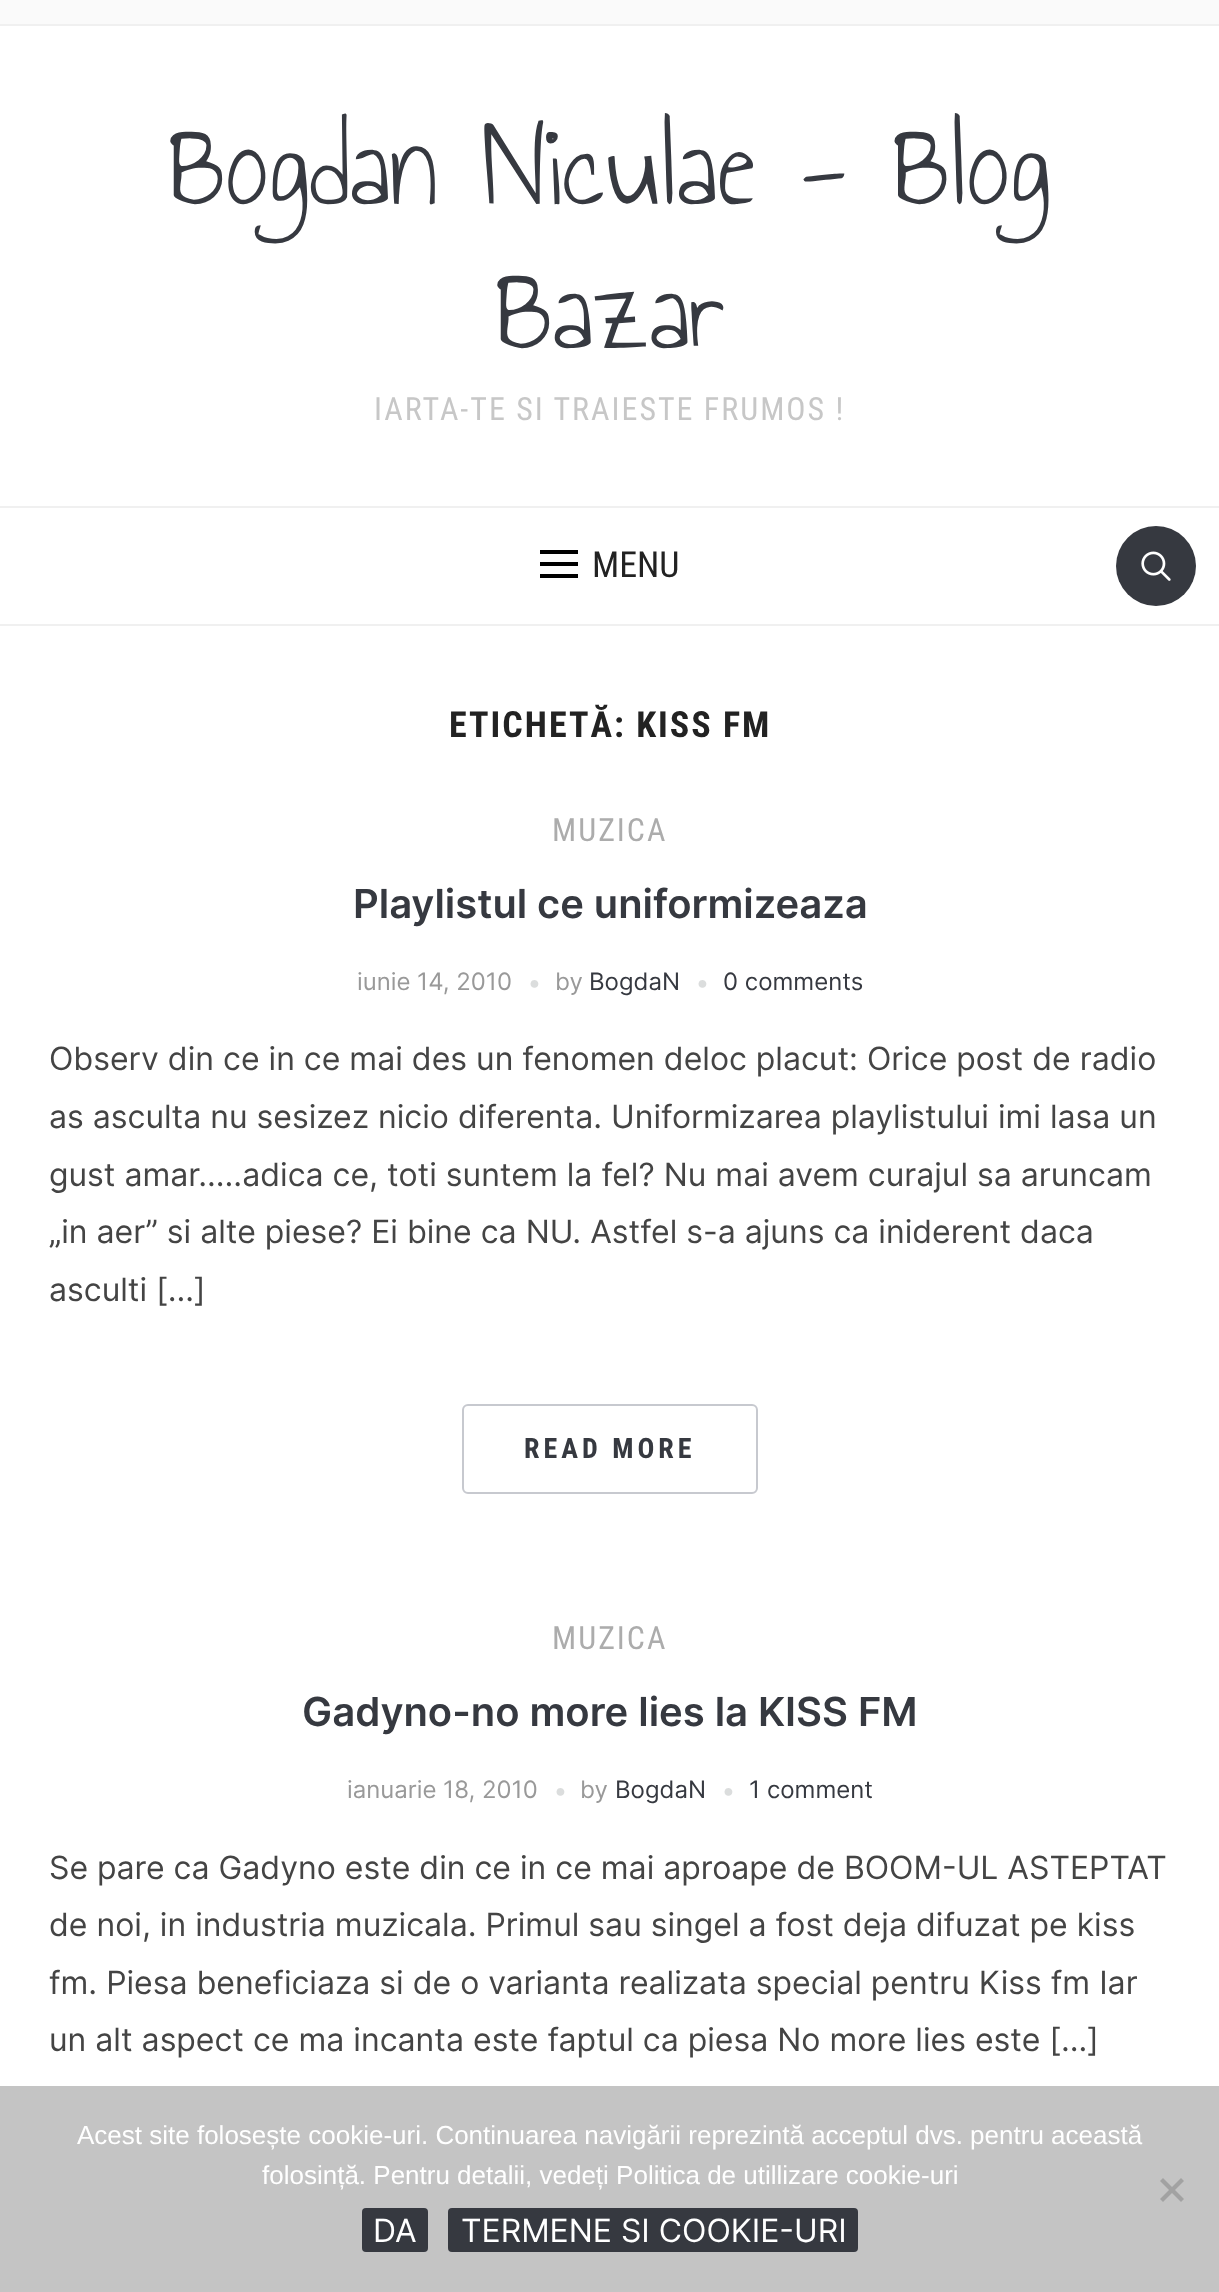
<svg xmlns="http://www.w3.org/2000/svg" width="1219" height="2292">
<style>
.a{font:120px Annie Use Your Telescope;fill:#363940}
.b{font:32px Roboto Condensed;letter-spacing:2px;fill:#c7c7c7}
.c{font:36px Roboto Condensed;fill:#222}
.d{font:bold 36px Roboto Condensed;letter-spacing:2px;fill:#222}
.e{font:32px Roboto Condensed;letter-spacing:2px;fill:#acacac}
.f{font:600 40px Inter;fill:#363940}
.g{font:24px Inter;fill:#999}
.h{font:18px Liberation Sans;fill:#dbdddd}
.i{font:24px Inter;fill:#363940}
.j{font:32px Inter;fill:#444}
.k{font:bold 28px Roboto Condensed;letter-spacing:4px;fill:#363940}
.l{font:26px Liberation Sans;fill:#fff}
.m{font:32px Inter;fill:#fff}
</style>
<rect width="100%" height="100%" fill="#fff"/>
<path fill="#fafafa" d="M0 0h1219v24H0z"/>
<path fill="#f0f0f0" d="M0 24h1219v2H0z"/>
<path fill="#f0f0f0" d="M0 506h1219v2H0z"/>
<path fill="#f0f0f0" d="M0 624h1219v2H0z"/>
<path fill="#000" d="M540 550h38v4H540z"/>
<path fill="#000" d="M540 562h38v4H540z"/>
<path fill="#000" d="M540 574h38v4H540z"/>
<circle fill="#363940" cx="1156" cy="566" r="40"/>
<image href="1.png" x="1141" y="551" width="30" height="30"/>
<rect fill="none" stroke="#c7c9cf" stroke-width="2" x="463" y="1405" width="294" height="88" rx="5"/>
<path fill="#c4c4c4" d="M0 2086h1219v206H0z"/>
<path fill="#a2a2a2" d="M1181 2178l3 3l-21 21l-3-3z"/>
<path fill="#a2a2a2" d="M1160 2181l3-3l21 21l-3 3z"/>
<rect fill="#363940" x="362" y="2208" width="66" height="44" rx="4"/>
<rect fill="#363940" x="448" y="2208" width="410" height="44" rx="4"/>
<text class="a" x="168" y="204">Bogdan Niculae - Blog</text>
<text class="a" x="495" y="348">Bazar</text>
<text class="b" x="374" y="420">IARTA-TE SI TRAIESTE FRUMOS !</text>
<text class="c" x="592" y="577">MENU</text>
<text class="d" x="449" y="737">ETICHETĂ: KISS FM</text>
<text class="e" x="552" y="841">MUZICA</text>
<text class="f" x="353" y="918">Playlistul ce uniformizeaza</text>
<text class="g" x="357" y="990">iunie 14, 2010</text>
<text class="h" x="529" y="989">●</text>
<text class="g" x="555" y="990">by</text>
<text class="i" x="589" y="990">BogdaN</text>
<text class="h" x="697" y="989">●</text>
<text class="i" x="723" y="990">0 comments</text>
<text class="j" x="49" y="1070">Observ din ce in ce mai des un fenomen deloc placut: Orice post de radio</text>
<text class="j" x="49" y="1128">as asculta nu sesizez nicio diferenta. Uniformizarea playlistului imi lasa un</text>
<text class="j" x="49" y="1186">gust amar…..adica ce, toti suntem la fel? Nu mai avem curajul sa aruncam</text>
<text class="j" x="49" y="1243">„in aer” si alte piese? Ei bine ca NU. Astfel s-a ajuns ca iniderent daca</text>
<text class="j" x="49" y="1301">asculti […]</text>
<text class="k" x="524" y="1458">READ MORE</text>
<text class="e" x="552" y="1649">MUZICA</text>
<text class="f" x="302" y="1726">Gadyno-no more lies la KISS FM</text>
<text class="g" x="347" y="1798">ianuarie 18, 2010</text>
<text class="h" x="555" y="1797">●</text>
<text class="g" x="580" y="1798">by</text>
<text class="i" x="615" y="1798">BogdaN</text>
<text class="h" x="723" y="1797">●</text>
<text class="i" x="749" y="1798">1 comment</text>
<text class="j" x="49" y="1879">Se pare ca Gadyno este din ce in ce mai aproape de BOOM-UL ASTEPTAT</text>
<text class="j" x="49" y="1936">de noi, in industria muzicala. Primul sau singel a fost deja difuzat pe kiss</text>
<text class="j" x="49" y="1994">fm. Piesa beneficiaza si de o varianta realizata special pentru Kiss fm Iar</text>
<text class="j" x="49" y="2051">un alt aspect ce ma incanta este faptul ca piesa No more lies este […]</text>
<text class="l" x="77" y="2144">Acest site folosește cookie-uri. Continuarea navigării reprezintă acceptul dvs. pentru această</text>
<text class="l" x="262" y="2184">folosință. Pentru detalii, vedeți Politica de utillizare cookie-uri</text>
<text class="m" x="373" y="2242">DA</text>
<text class="m" x="461" y="2242">TERMENE SI COOKIE-URI</text>
</svg>
